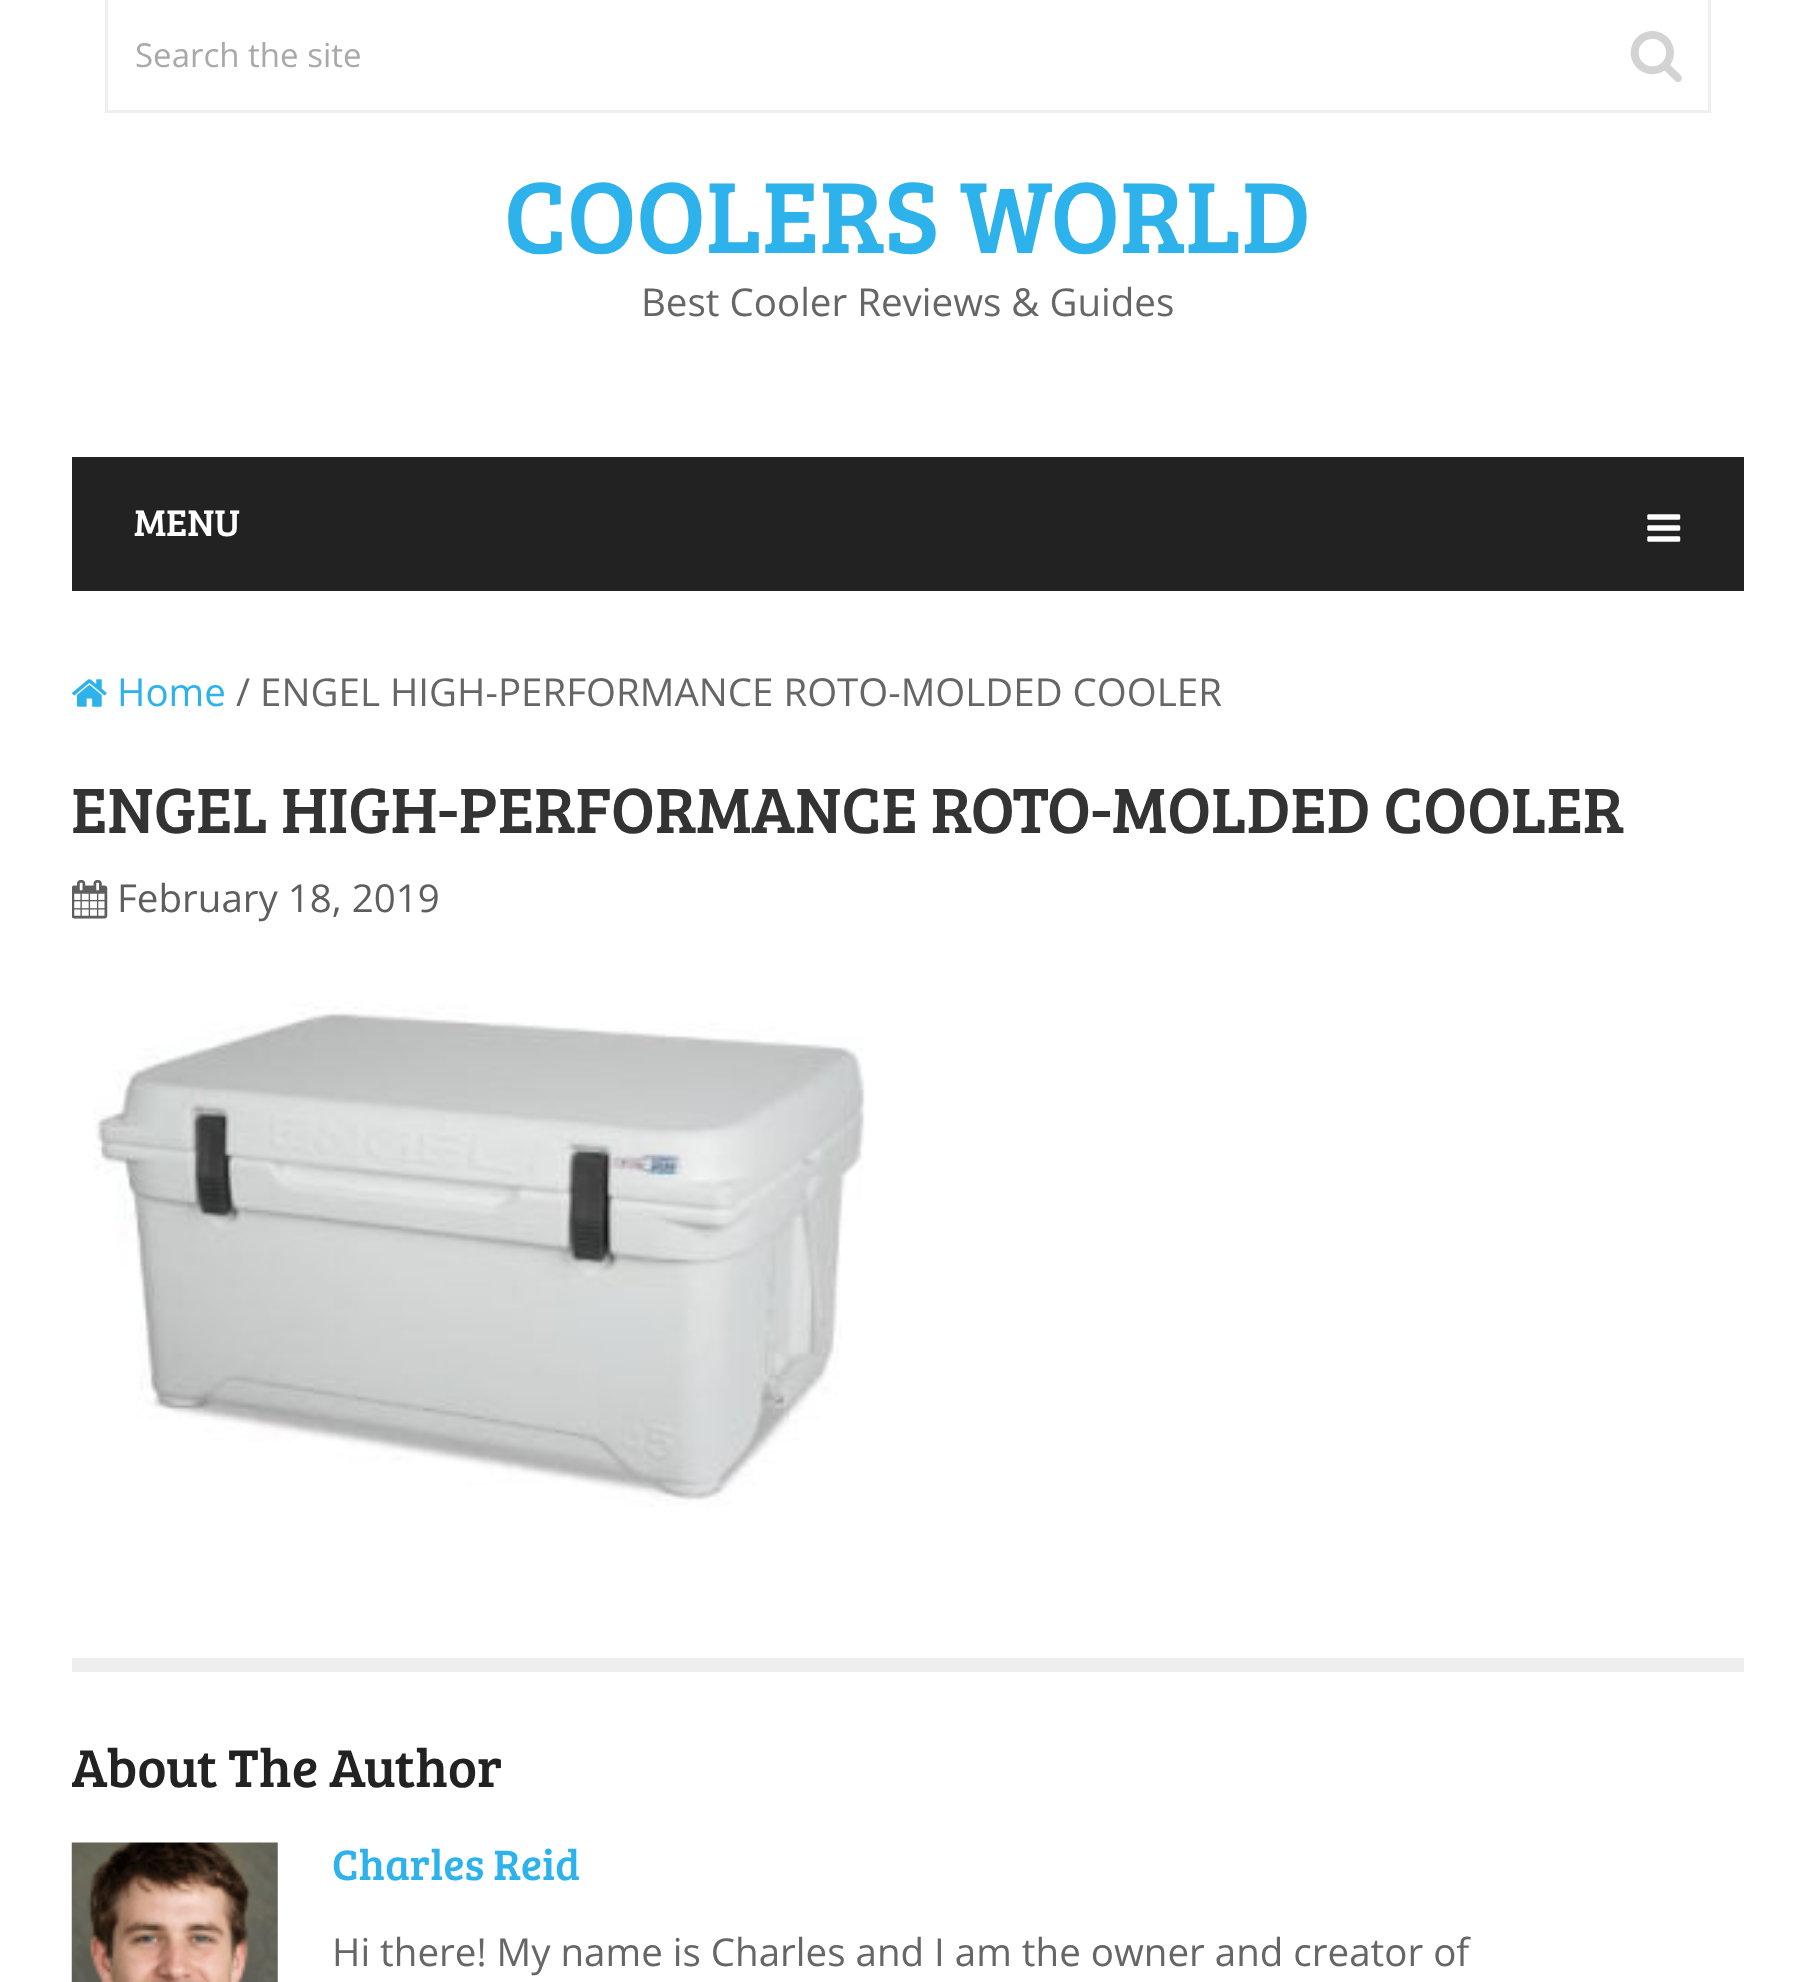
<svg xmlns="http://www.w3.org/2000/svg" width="1813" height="1982">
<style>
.a{font:33px Open Sans;fill:#a9a9ab}
.b{font:104.5px Bree Serif;fill:#2db2eb}
.c{font:38.5px Open Sans;fill:#666}
.d{font:38.5px Bree Serif;fill:#fff}
.e{font:38.5px Open Sans;fill:#2db2eb}
.f{font:66px Bree Serif;fill:#333}
.g{font:38.5px Open Sans;fill:#5e5e5e}
.h{font:55px Bree Serif;fill:#222}
.i{font:44px Bree Serif;fill:#2db2eb}
</style>
<defs>
<clipPath id="clip1"><path d="M72 660h1672v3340H72z"/></clipPath>
</defs>
<rect width="100%" height="100%" fill="#fff"/>
<path fill="#eee" d="M1708 0h3v113H1708z"/>
<path fill="#eee" d="M105 110h1606v3H105z"/>
<path fill="#eee" d="M105 0h3v113H105z"/>
<image href="1.png" x="1630" y="31" width="52" height="51"/>
<path fill="#222" d="M72 457h1672v134H72z"/>
<image href="2.png" x="1647" y="514" width="34" height="28"/>
<image href="3.png" x="72" y="679" width="35" height="28"/>
<path fill="#eee" d="M72 1658h1672v14H72z"/>
<image href="4.png" x="72" y="880" width="36" height="39"/>
<image href="5.png" x="94" y="1002" width="771" height="505"/>
<image href="6.png" x="71" y="1842" width="207" height="140"/>
<text class="a" x="135" y="67">Search the site</text>
<text class="b" x="504" y="253">COOLERS WORLD</text>
<text class="c" x="641" y="316">Best Cooler Reviews &amp; Guides</text>
<text class="d" x="134" y="536">MENU</text>
<text class="e" x="117" y="706">Home</text>
<text class="c" x="236" y="706">/ ENGEL HIGH-PERFORMANCE ROTO-MOLDED COOLER</text>
<text class="f" x="71" y="833">ENGEL HIGH-PERFORMANCE ROTO-MOLDED COOLER</text>
<text class="g" x="117" y="912">February 18, 2019</text>
<g clip-path="url(#clip1)">
<text class="h" x="71" y="1787">About The Author</text>
</g>
<text class="i" x="332" y="1880">Charles Reid</text>
<text class="c" x="332" y="1966">Hi there! My name is Charles and I am the owner and creator of</text>
</svg>
